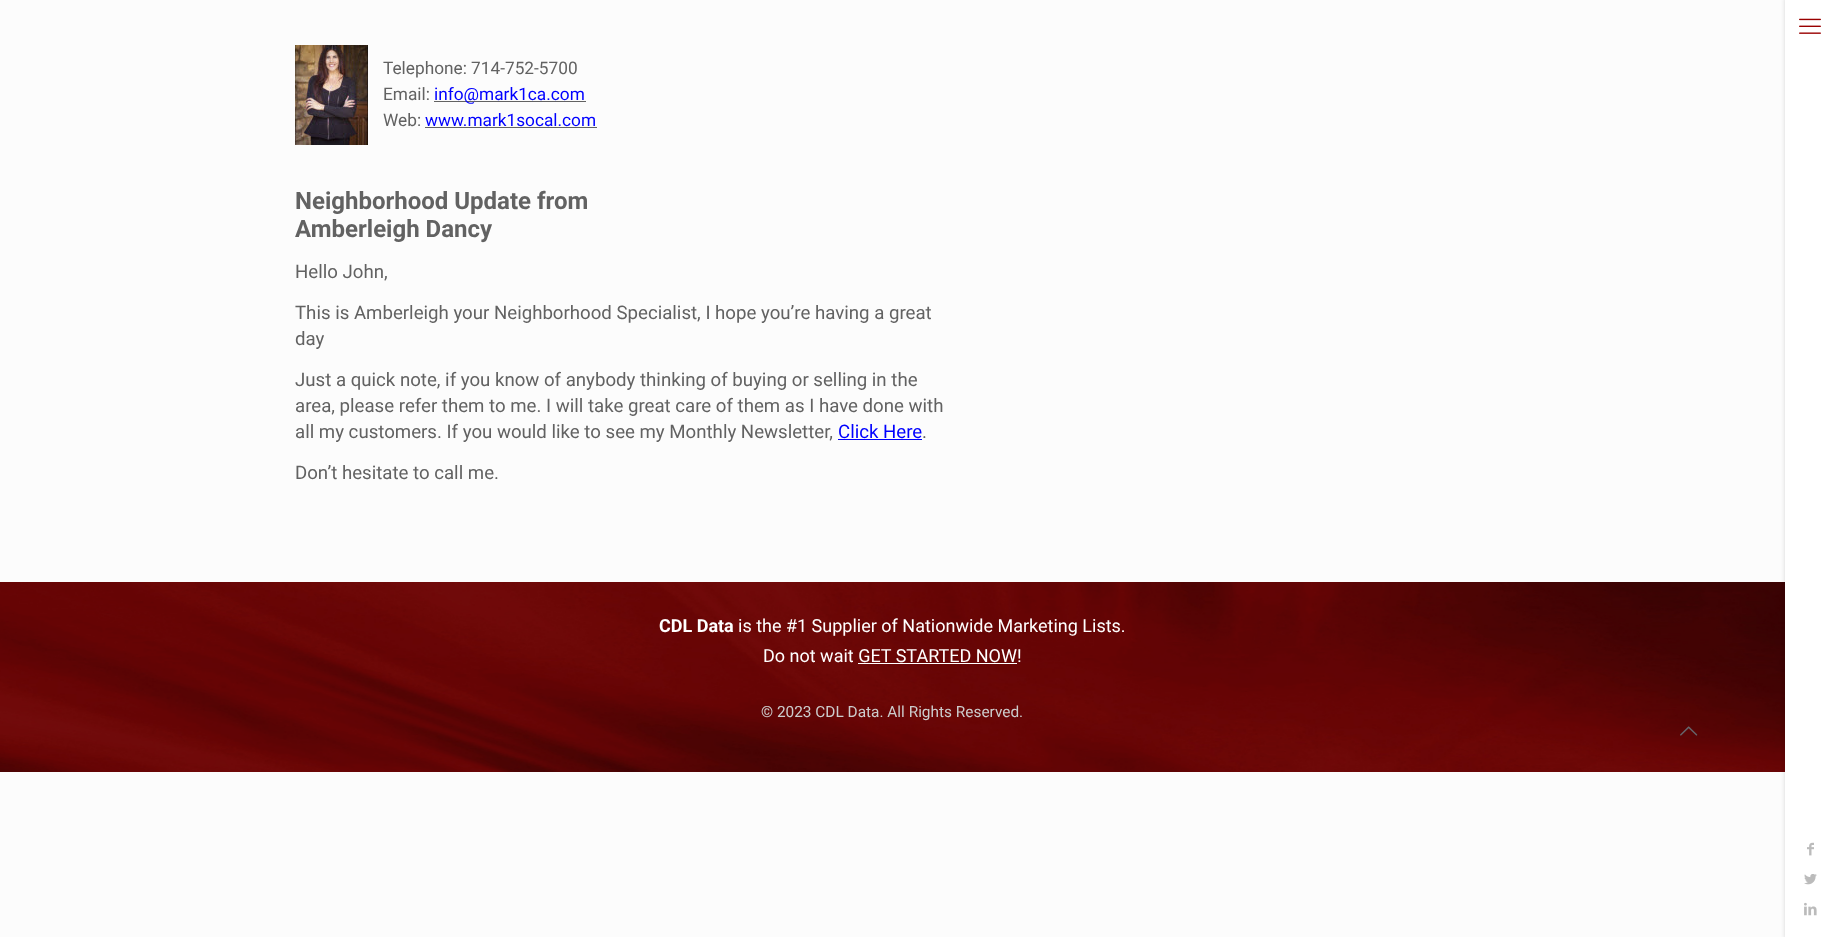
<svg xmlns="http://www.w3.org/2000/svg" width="1835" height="937">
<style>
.a{font:17.25px Roboto;fill:#626262}
.b{font:17.25px Roboto;fill:#00f}
.c{font:bold 24px Roboto;fill:#626262}
.d{font:18.65px Roboto;fill:#626262}
.e{font:18.65px Roboto;fill:#00f}
.f{font:bold 18px Roboto;fill:#fff}
.g{font:18px Roboto;fill:#fff}
.h{font:15.4px Roboto;fill:#ccc}
</style>
<rect width="100%" height="100%" fill="#fcfcfc"/>
<image href="1.png" x="295" y="45" width="73" height="100"/>
<path fill="#626262" d="M434 101h152v1H434z"/>
<path fill="#626262" d="M425 127h172v1H425z"/>
<path fill="#00f" d="M838 439h84v1H838z"/>
<image href="2.png" x="0" y="582" width="1785" height="190"/>
<path fill="#fff" d="M858 663h159v1H858z"/>
<image href="3.png" x="1680" y="726" width="18" height="10"/>
<path fill="#00000026" filter="blur(2px)" d="M1785 -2h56v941H1785z"/>
<path fill="#fff" d="M1785 0h50v937H1785z"/>
<image href="4.png" x="1799" y="18" width="22" height="16"/>
<image href="5.png" x="1807" y="842" width="7" height="14"/>
<image href="6.png" x="1804" y="874" width="13" height="11"/>
<image href="7.png" x="1804" y="902" width="13" height="14"/>
<text class="a" x="383" y="74">Telephone: 714-752-5700</text>
<text class="a" x="383" y="100">Email:</text>
<text class="b" x="434" y="100">info@mark1ca.com</text>
<text class="a" x="383" y="126">Web:</text>
<text class="b" x="425" y="126">www.mark1socal.com</text>
<text class="c" x="295" y="209">Neighborhood Update from</text>
<text class="c" x="295" y="237">Amberleigh Dancy</text>
<text class="d" x="295" y="278">Hello John,</text>
<text class="d" x="295" y="319">This is Amberleigh your Neighborhood Specialist, I hope you’re having a great</text>
<text class="d" x="295" y="345">day</text>
<text class="d" x="295" y="386">Just a quick note, if you know of anybody thinking of buying or selling in the</text>
<text class="d" x="295" y="412">area, please refer them to me. I will take great care of them as I have done with</text>
<text class="d" x="295" y="438">all my customers. If you would like to see my Monthly Newsletter,</text>
<text class="e" x="838" y="438">Click Here</text>
<text class="d" x="922" y="438">.</text>
<text class="d" x="295" y="479">Don’t hesitate to call me.</text>
<text class="f" x="659" y="632">CDL Data</text>
<text class="g" x="738" y="632">is the #1 Supplier of Nationwide Marketing Lists.</text>
<text class="g" x="763" y="662">Do not wait GET STARTED NOW!</text>
<text class="h" x="761" y="717">© 2023 CDL Data. All Rights Reserved.</text>
</svg>
